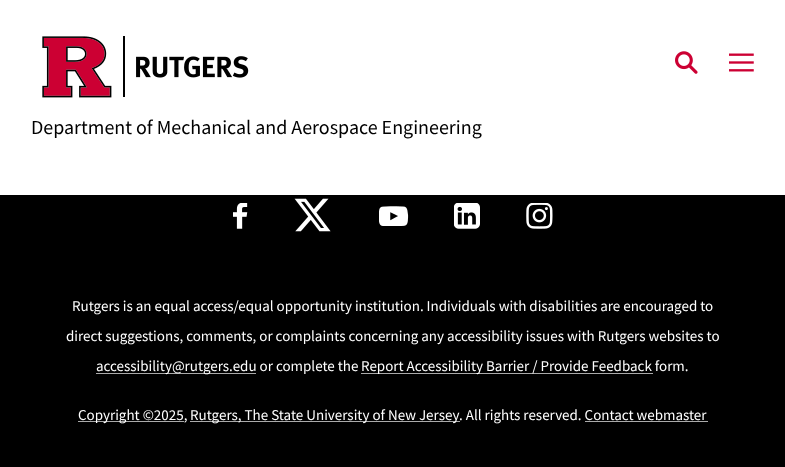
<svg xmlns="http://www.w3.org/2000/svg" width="785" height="467">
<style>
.a{font:20px Source Sans Pro;fill:#000}
.b{font:15px Source Sans Pro;fill:#fff}
</style>
<rect width="100%" height="100%" fill="#000"/>
<path fill="#fff" d="M0 0h785v195H0z"/>
<image href="1.png" x="675" y="51" width="23" height="23"/>
<image href="2.png" x="729" y="53" width="25" height="19"/>
<image href="3.png" x="42" y="36" width="207" height="62"/>
<image href="4.png" x="233" y="203" width="15" height="26"/>
<image href="5.png" x="294" y="198" width="37" height="34"/>
<image href="6.png" x="379" y="206" width="30" height="20"/>
<image href="7.png" x="454" y="203" width="26" height="26"/>
<image href="8.png" x="526" y="203" width="27" height="26"/>
<path fill="#aaa" d="M96 373h160v1H96z"/>
<path fill="#aaa" d="M361 373h292v1H361z"/>
<path fill="#aaa" d="M78 421h106v1H78z"/>
<path fill="#aaa" d="M190 421h270v1H190z"/>
<text class="a" x="31" y="134">Department of Mechanical and Aerospace Engineering</text>
<text class="b" x="72" y="311">Rutgers is an equal access/equal opportunity institution. Individuals with disabilities are encouraged to</text>
<text class="b" x="66" y="341">direct suggestions, comments, or complaints concerning any accessibility issues with Rutgers websites to</text>
<text class="b" x="96" y="371">accessibility@rutgers.edu or complete the</text>
<text class="b" x="361" y="371">Report Accessibility Barrier / Provide Feedback form.</text>
<text class="b" x="78" y="420">Copyright ©2025,</text>
<text class="b" x="190" y="420">Rutgers, The State University of New Jersey. All rights reserved. Contact webmaster</text>
<path fill="#aaa" d="M585 421h123v1H585z"/>
</svg>
